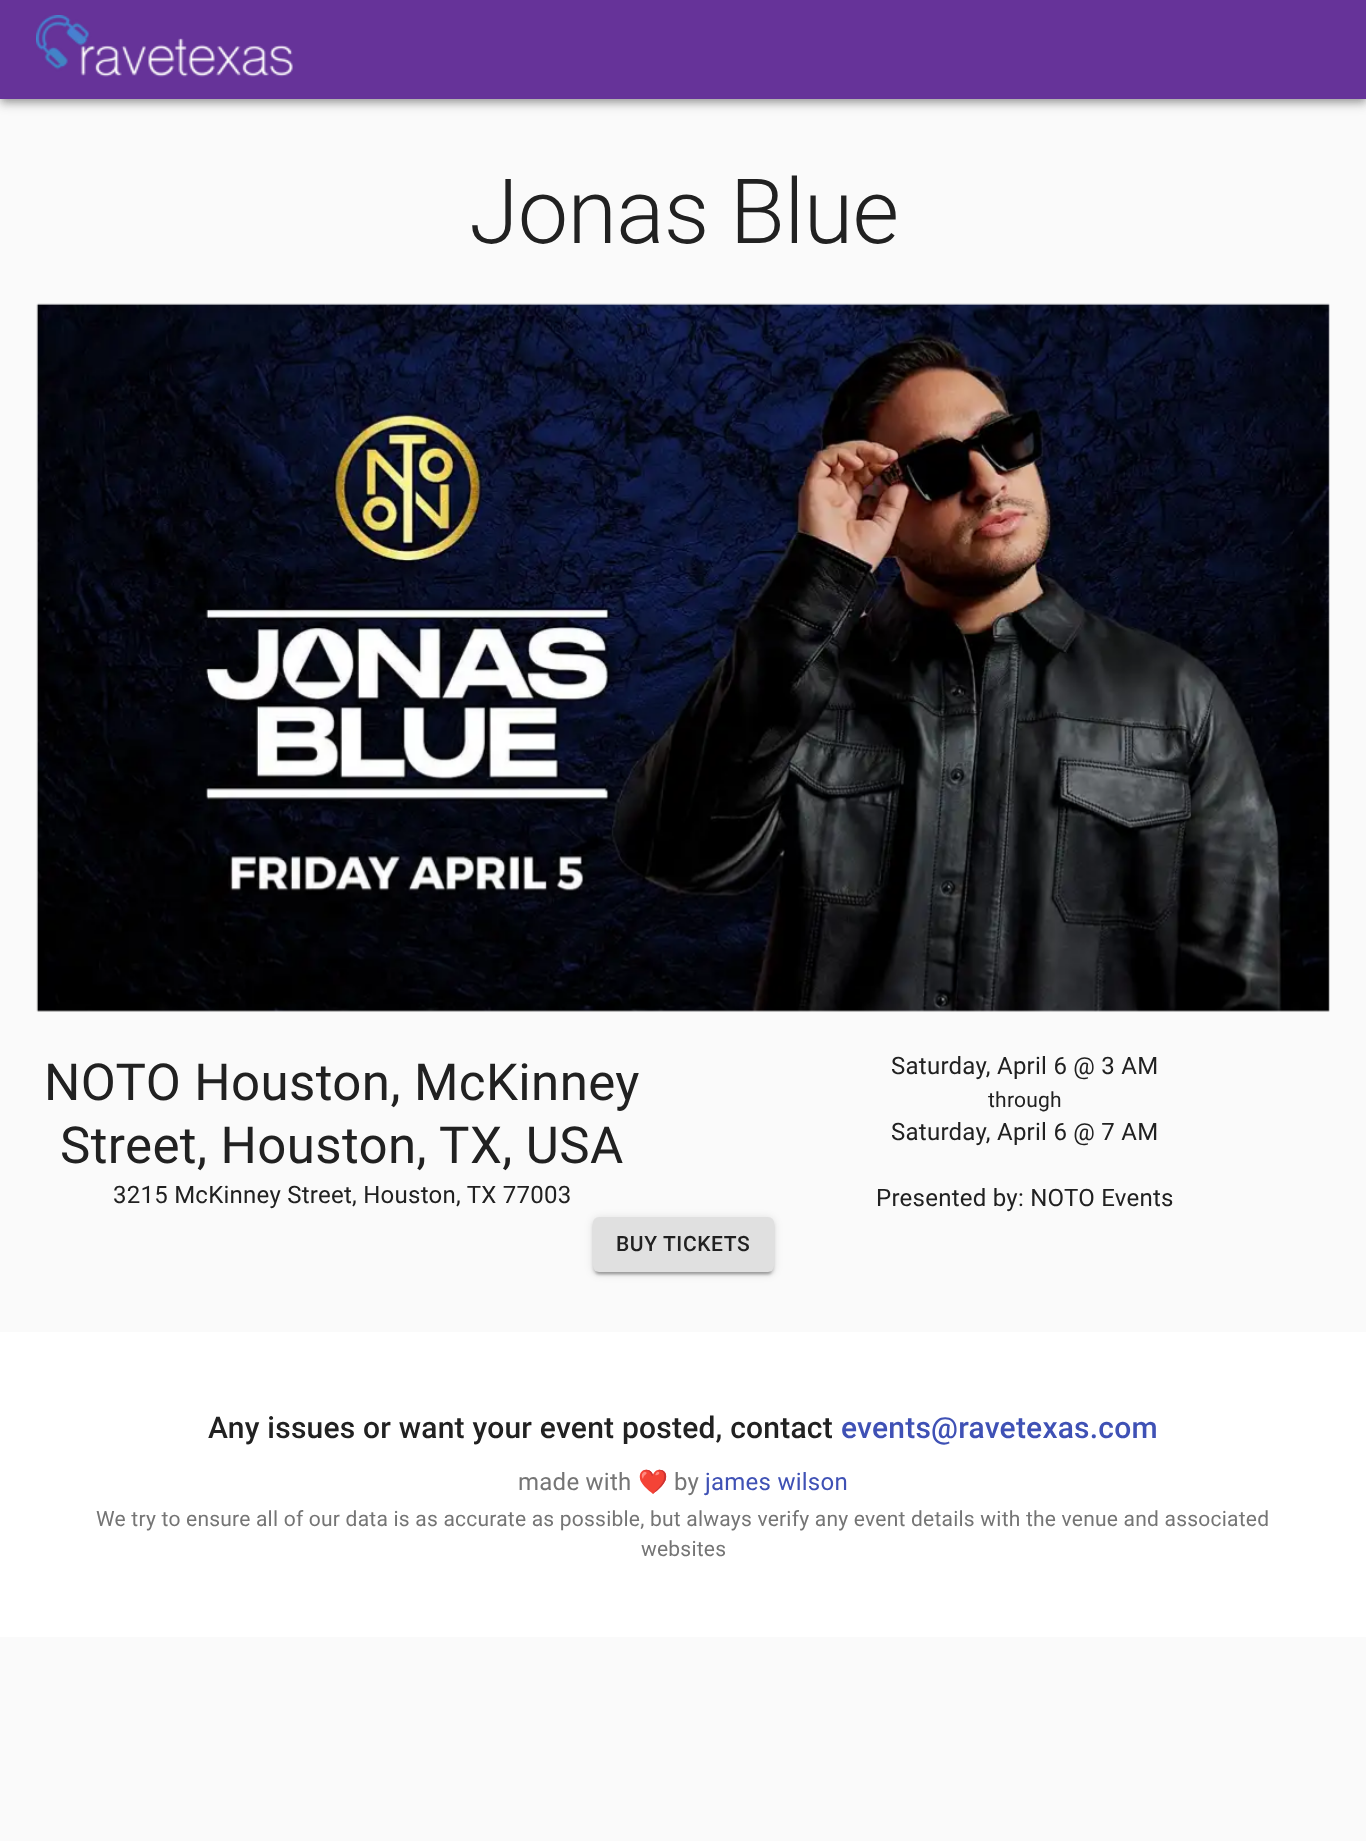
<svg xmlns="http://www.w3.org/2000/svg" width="1366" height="1841">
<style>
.a{font:300 90px Roboto;letter-spacing:-0.75px;fill:#212121}
.b{font:51px Roboto;letter-spacing:0.4px;fill:#212121}
.c{font:24px Roboto;letter-spacing:0.25px;fill:#212121}
.d{font:21px Roboto;letter-spacing:0.22px;fill:#212121}
.e{font:500 21px Roboto;letter-spacing:0.6px;fill:#212121}
.f{font:500 30px Roboto;letter-spacing:0.22px;fill:#212121}
.g{font:500 30px Roboto;letter-spacing:0.22px;fill:#3f51b5}
.h{font:24px Roboto;letter-spacing:0.25px;fill:#757575}
.i{font:24px Noto Color Emoji;letter-spacing:0.25px;fill:#757575}
.j{font:24px Roboto;letter-spacing:0.25px;fill:#3f51b5}
.k{font:21px Roboto;letter-spacing:0.22px;fill:#757575}
</style>
<rect width="100%" height="100%" fill="#fafafa"/>
<path fill="#0000001f" filter="blur(7.5px)" d="M0 2h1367v99H0z"/>
<path fill="#00000024" filter="blur(4px)" d="M0 6h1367v99H0z"/>
<path fill="#00000033" filter="blur(3px)" d="M2 5h1363v96H2z"/>
<path fill="#639" d="M0 0h1366v99H0z"/>
<image href="1.png" x="36" y="15" width="257" height="62"/>
<image href="2.png" x="36" y="303" width="1294" height="709"/>
<rect fill="#0000001f" filter="blur(4px)" x="593" y="1218" width="181" height="56" rx="6"/>
<rect fill="#00000024" filter="blur(1.5px)" x="593" y="1220" width="181" height="55" rx="6"/>
<rect fill="#00000033" filter="blur(1px)" x="596" y="1224" width="175" height="50" rx="3"/>
<rect fill="#e0e0e0" x="593" y="1217" width="181" height="55" rx="6"/>
<path fill="#fff" d="M0 1332h1366v305H0z"/>
<text class="a" x="469" y="243">Jonas Blue</text>
<text class="b" x="44" y="1100">NOTO Houston, McKinney</text>
<text class="b" x="60" y="1163">Street, Houston, TX, USA</text>
<text class="c" x="113" y="1203">3215 McKinney Street, Houston, TX 77003</text>
<text class="c" x="891" y="1074">Saturday, April 6 @ 3 AM</text>
<text class="d" x="988" y="1107">through</text>
<text class="c" x="891" y="1140">Saturday, April 6 @ 7 AM</text>
<text class="c" x="876" y="1206">Presented by: NOTO Events</text>
<text class="e" x="616" y="1251">BUY TICKETS</text>
<text class="f" x="208" y="1438">Any issues or want your event posted, contact</text>
<text class="g" x="841" y="1438">events@ravetexas.com</text>
<text class="h" x="518" y="1490">made with</text>
<text class="i" x="638" y="1490">❤️</text>
<text class="h" x="674" y="1490">by</text>
<text class="j" x="705" y="1490">james wilson</text>
<text class="k" x="96" y="1526">We try to ensure all of our data is as accurate as possible, but always verify any event details with the venue and associated</text>
<text class="k" x="641" y="1556">websites</text>
</svg>
